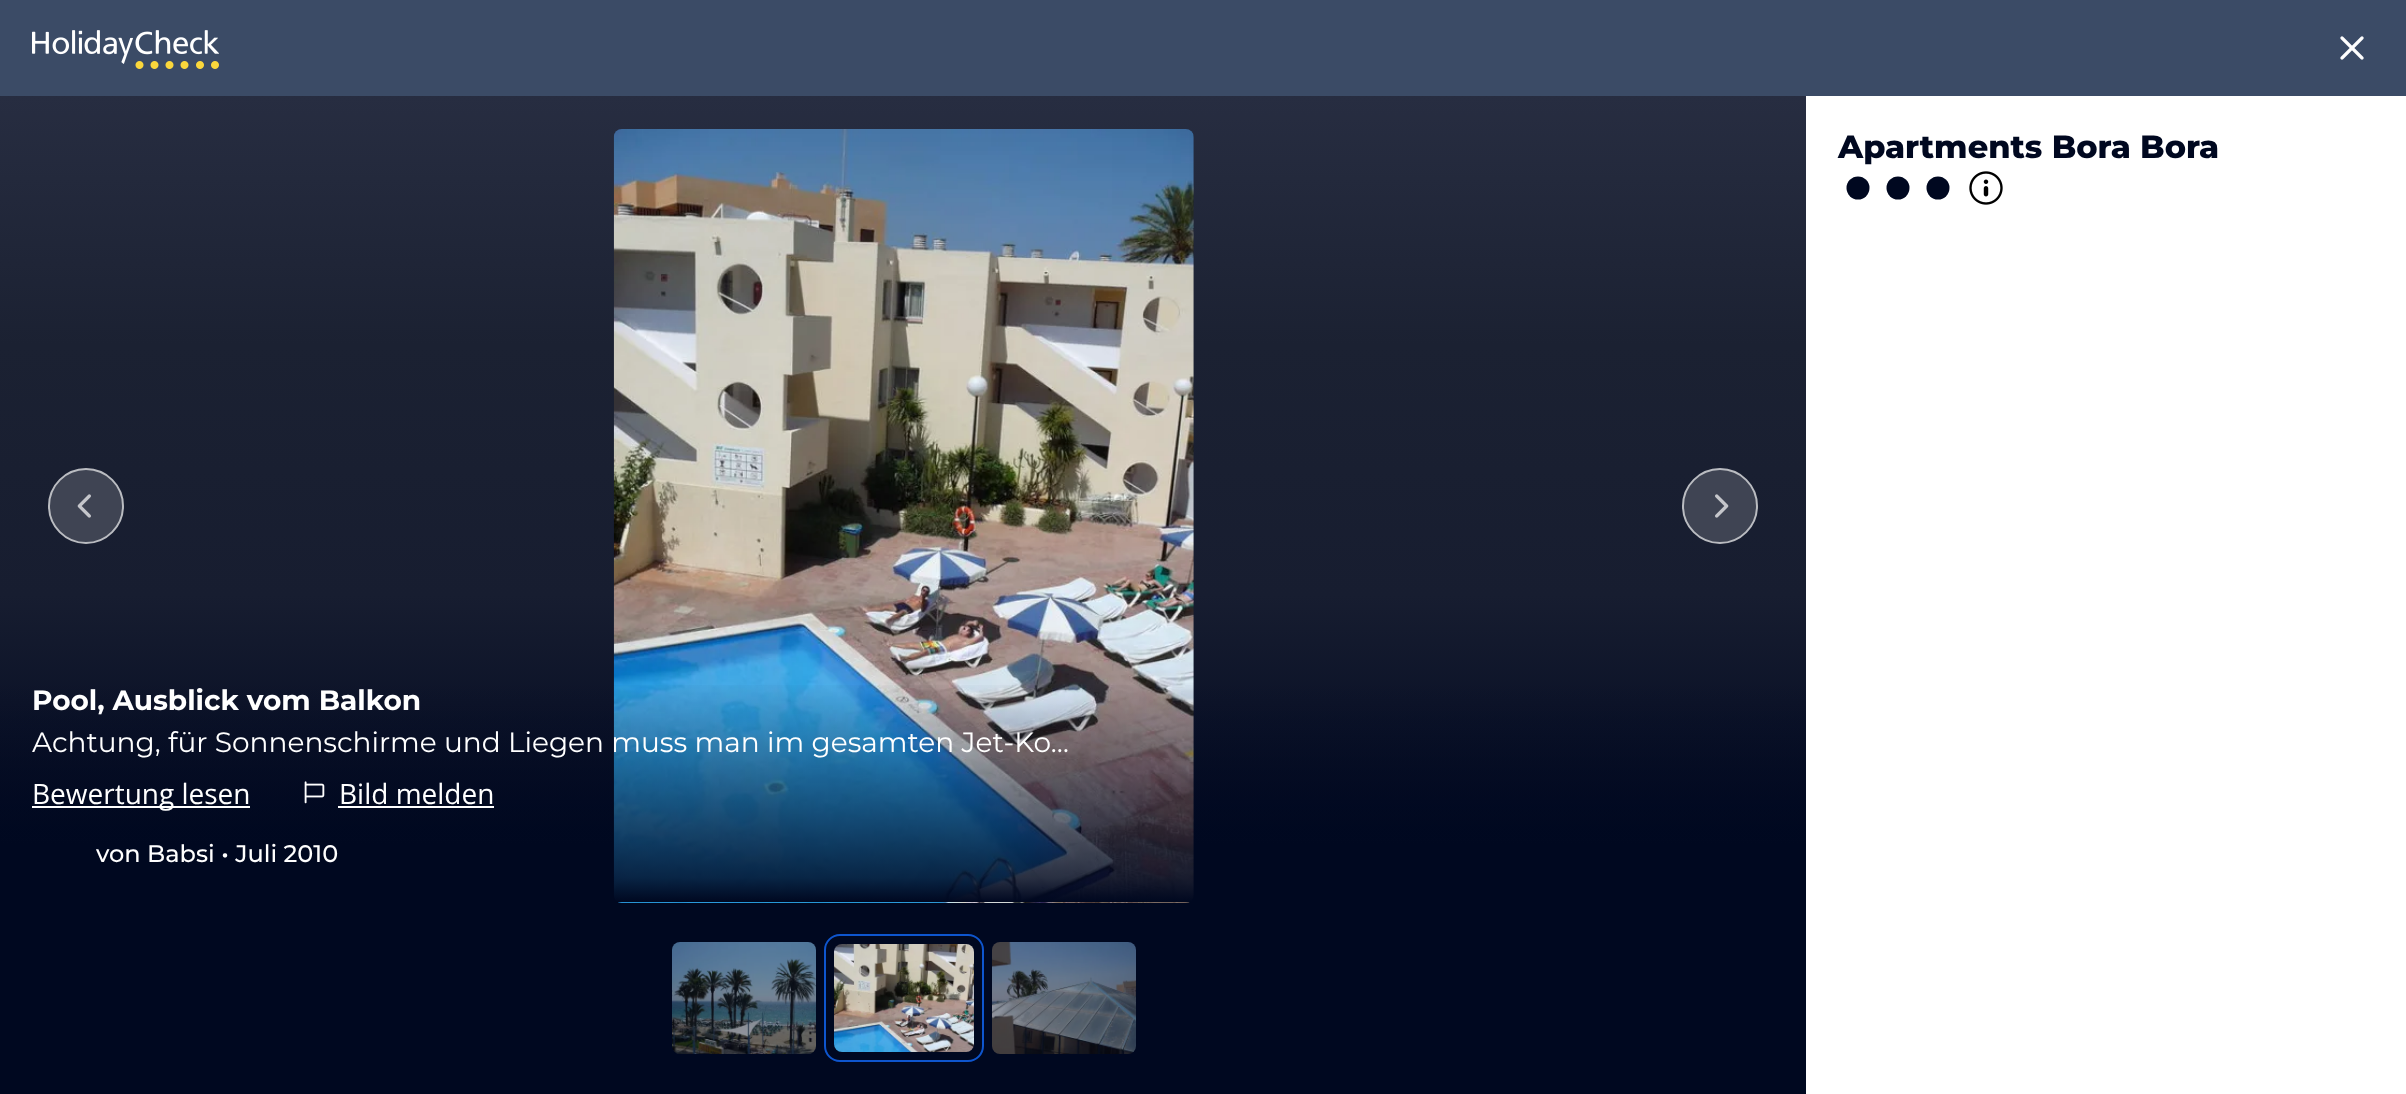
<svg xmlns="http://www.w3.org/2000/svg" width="2406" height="1094">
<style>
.a{font:800 32px Montserrat;fill:#000820}
.b{font:bold 28px Montserrat;fill:#fff}
.c{font:28px Montserrat;fill:#fff}
.d{font:28px Open Sans;fill:#fff}
.e{font:500 24px Montserrat;fill:#fff}
</style>
<defs>
<linearGradient id="g1" gradientUnits="userSpaceOnUse" x1="903" y1="1094" x2="903" y2="96"><stop offset="0" stop-color="#000820"/><stop offset="0.25" stop-color="#000820"/><stop offset="0.5" stop-color="#171d30"/><stop offset="0.75" stop-color="#1b2132"/><stop offset="1" stop-color="#272d41"/></linearGradient>
<linearGradient id="g2" gradientUnits="userSpaceOnUse" x1="903" y1="902" x2="903" y2="680"><stop offset="0" stop-color="#000820"/><stop offset="0.11" stop-color="#000820" stop-opacity="0.8"/><stop offset="1" stop-color="#000820" stop-opacity="0"/></linearGradient>
</defs>
<rect width="100%" height="100%" fill="#fff"/>
<path fill="#3b4b66" d="M0 0h2406v96H0z"/>
<image href="1.png" x="32" y="30" width="187" height="39"/>
<image href="2.png" x="2340" y="36" width="24" height="24"/>
<circle fill="#000820" cx="1858" cy="188" r="11.5"/>
<circle fill="#000820" cx="1898" cy="188" r="11.5"/>
<circle fill="#000820" cx="1938" cy="188" r="11.5"/>
<image href="3.png" x="1969" y="171" width="34" height="34"/>
<path fill="url(#g1)" d="M0 96h1806v998H0z"/>
<circle fill="#3f4453" stroke="#babcc1" stroke-width="2" cx="86" cy="506" r="37"/>
<image href="4.png" x="77" y="494" width="14" height="24"/>
<circle fill="#3f4453" stroke="#babcc1" stroke-width="2" cx="1720" cy="506" r="37"/>
<image href="5.png" x="1715" y="494" width="14" height="24"/>
<image href="6.png" x="613" y="129" width="581" height="774"/>
<path fill="url(#g2)" d="M0 685h1806v217H0z"/>
<path fill="#fff" d="M32 806h218v2H32z"/>
<image href="7.png" x="304" y="781" width="21" height="23"/>
<path fill="#fff" d="M338 806h156v2H338z"/>
<image href="8.png" x="672" y="942" width="144" height="112"/>
<rect fill="none" stroke="#0e55cd" stroke-width="2" x="825" y="935" width="158" height="126" rx="15"/>
<image href="9.png" x="834" y="944" width="140" height="108"/>
<image href="10.png" x="992" y="942" width="144" height="112"/>
<text class="a" x="1838" y="158">Apartments Bora Bora</text>
<text class="b" x="32" y="710">Pool, Ausblick vom Balkon</text>
<text class="c" x="32" y="752">Achtung, für Sonnenschirme und Liegen muss man im gesamten Jet-Ko…</text>
<text class="d" x="32" y="804">Bewertung lesen</text>
<text class="d" x="339" y="804">Bild melden</text>
<text class="e" x="96" y="862">von Babsi • Juli 2010</text>
</svg>
